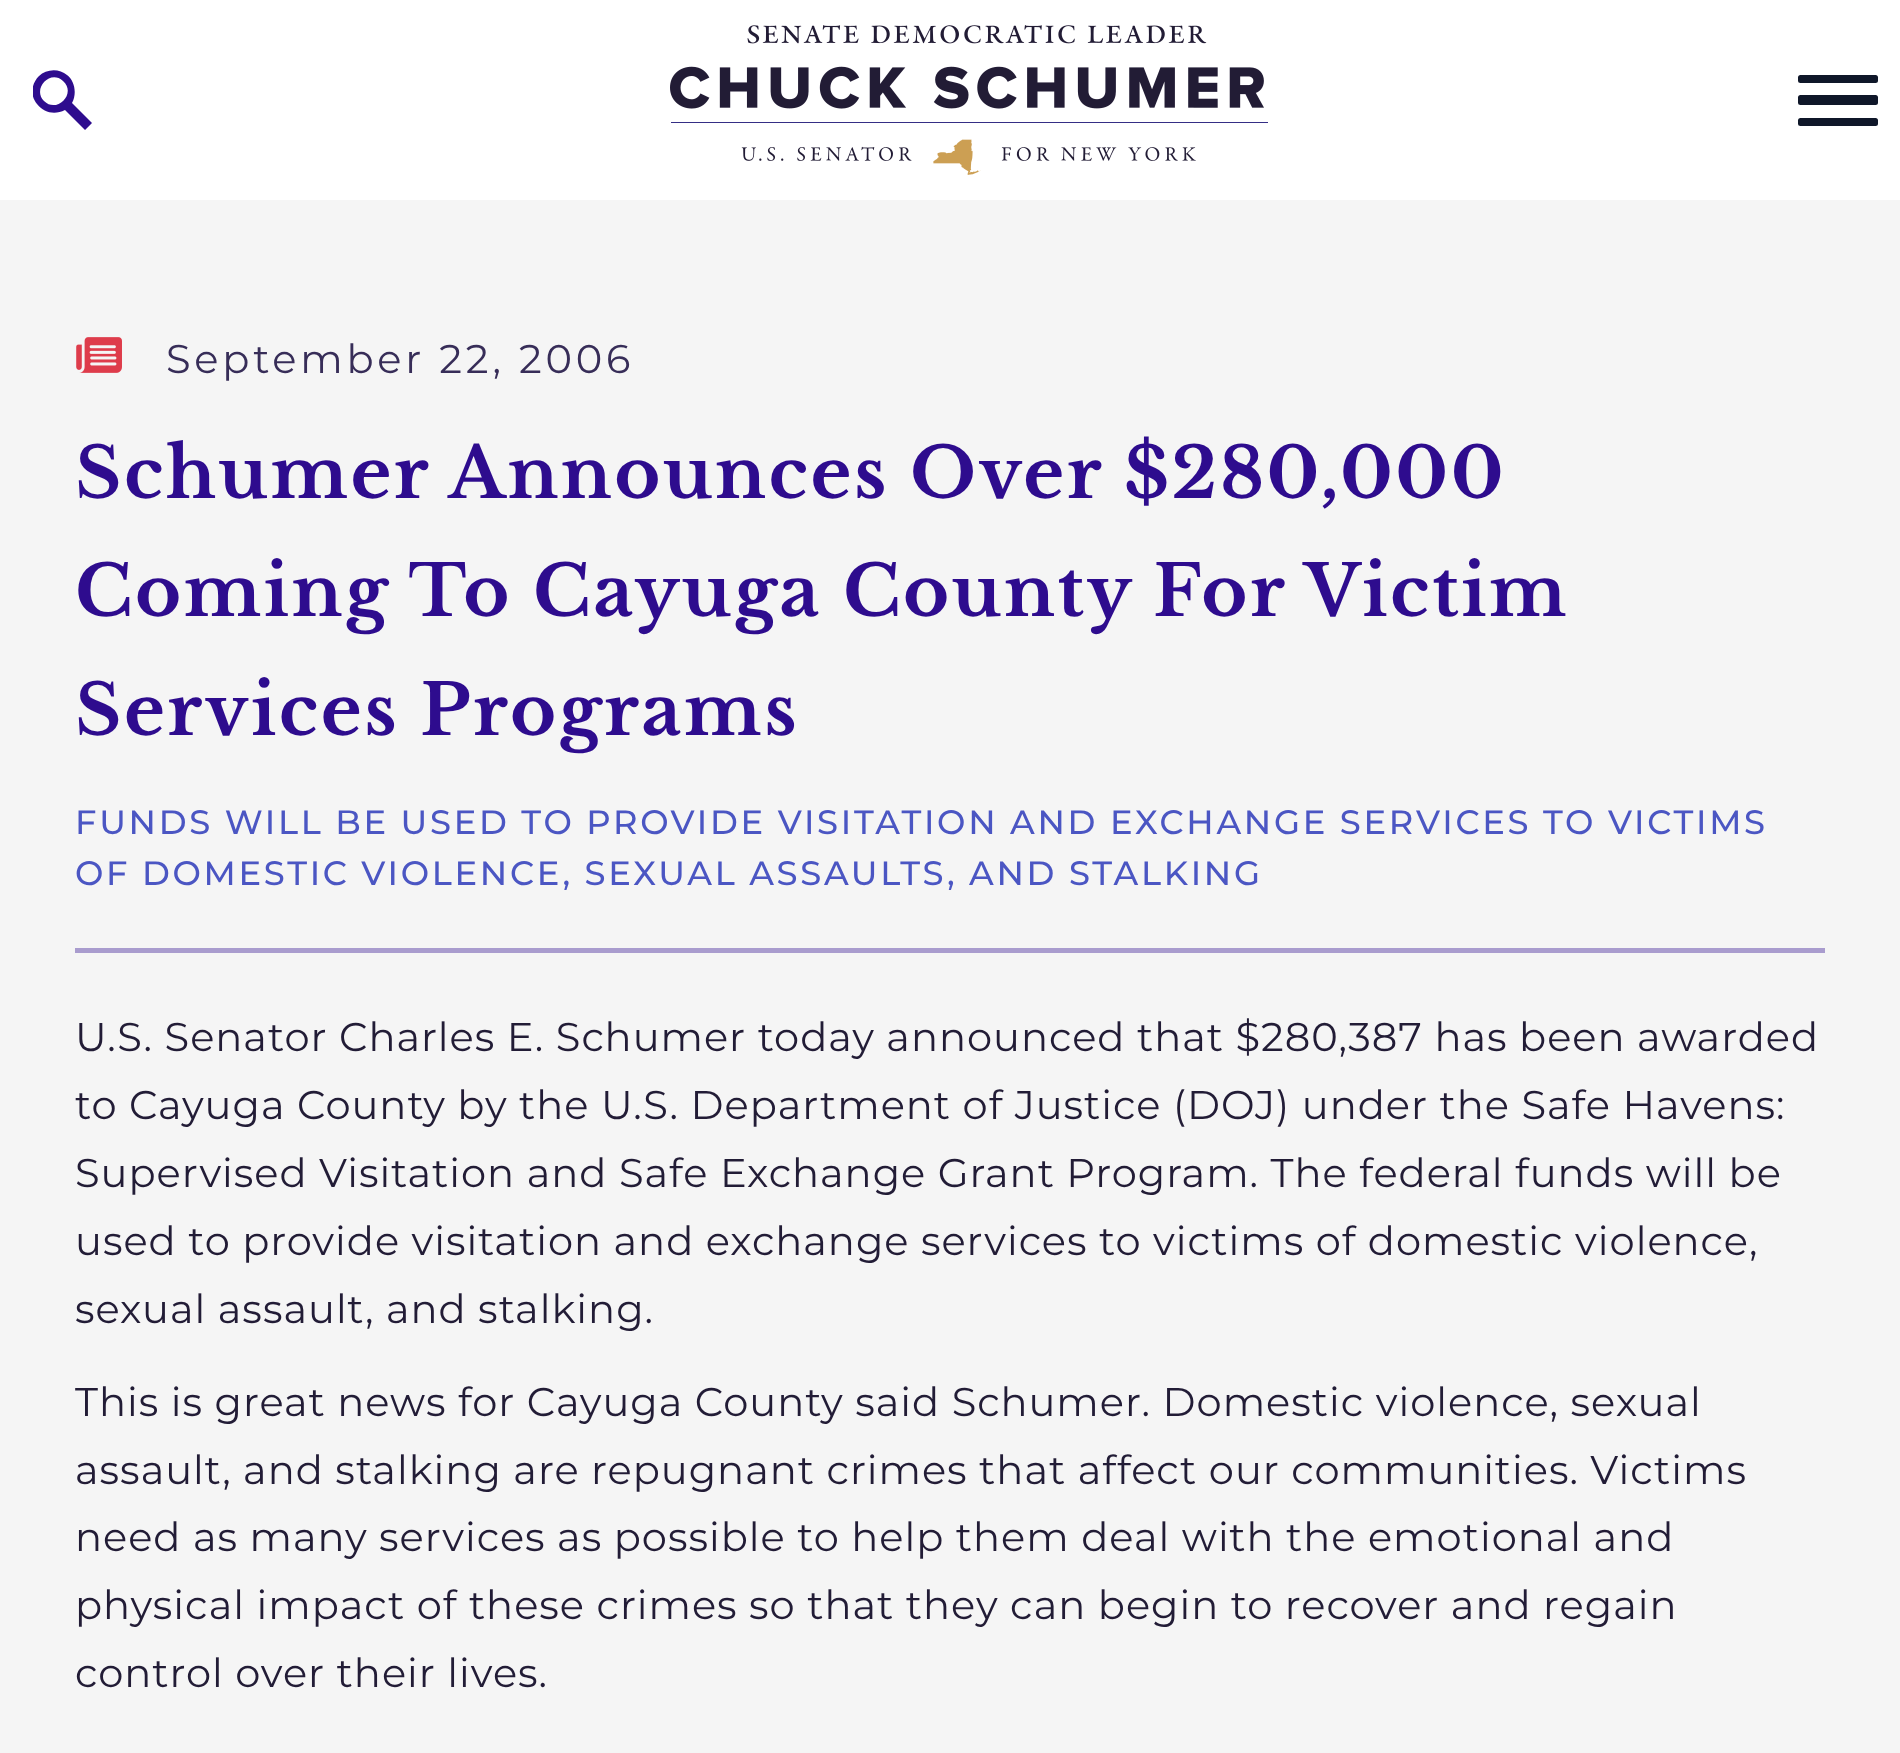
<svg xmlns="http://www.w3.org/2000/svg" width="1900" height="1753">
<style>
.a{font:40px Montserrat;letter-spacing:3.75px;fill:#372d58}
.b{font:bold 70px Libre Baskerville;letter-spacing:2.5px;fill:#2e0c8e}
.c{font:500 33.75px Montserrat;letter-spacing:2.7px;fill:#4b56c3}
.d{font:40px Montserrat;letter-spacing:1px;fill:#221c36}
</style>
<defs>
<clipPath id="clip1"><path d="M33 70h60v60H33z"/></clipPath>
</defs>
<rect width="100%" height="100%" fill="#fff"/>
<g clip-path="url(#clip1)">
<path fill="#2e0c8e" d="M92 123l-20-20c5-9 3-22-5-28c-8-7-21-6-28 1c-8 8-9 20-2 28c7 9 18 11 28 6l20 20zm-48-22c-12-12 6-32 19-20c14 12-6 33-19 20z"/>
</g>
<image href="1.png" x="670" y="25" width="598" height="150"/>
<rect fill="#0f1729" x="1798" y="75" width="80" height="8" rx="2.5"/>
<rect fill="#0f1729" x="1798" y="95" width="80" height="10" rx="2.5"/>
<rect fill="#0f1729" x="1798" y="118" width="80" height="8" rx="2.5"/>
<path fill="#f5f5f5" d="M0 200h1900v1553H0z"/>
<image href="2.png" x="76" y="337" width="46" height="36"/>
<path fill="#a99cce" d="M75 948h1750v5H75z"/>
<text class="a" x="166" y="373">September 22, 2006</text>
<text class="b" x="75" y="498">Schumer Announces Over $280,000</text>
<text class="b" x="75" y="616">Coming To Cayuga County For Victim</text>
<text class="b" x="75" y="735">Services Programs</text>
<text class="c" x="75" y="834">FUNDS WILL BE USED TO PROVIDE VISITATION AND EXCHANGE SERVICES TO VICTIMS</text>
<text class="c" x="75" y="885">OF DOMESTIC VIOLENCE, SEXUAL ASSAULTS, AND STALKING</text>
<text class="d" x="75" y="1051">U.S. Senator Charles E. Schumer today announced that $280,387 has been awarded</text>
<text class="d" x="75" y="1119">to Cayuga County by the U.S. Department of Justice (DOJ) under the Safe Havens:</text>
<text class="d" x="75" y="1187">Supervised Visitation and Safe Exchange Grant Program. The federal funds will be</text>
<text class="d" x="75" y="1255">used to provide visitation and exchange services to victims of domestic violence,</text>
<text class="d" x="75" y="1323">sexual assault, and stalking.</text>
<text class="d" x="75" y="1416">This is great news for Cayuga County said Schumer. Domestic violence, sexual</text>
<text class="d" x="75" y="1484">assault, and stalking are repugnant crimes that affect our communities. Victims</text>
<text class="d" x="75" y="1551">need as many services as possible to help them deal with the emotional and</text>
<text class="d" x="75" y="1619">physical impact of these crimes so that they can begin to recover and regain</text>
<text class="d" x="75" y="1687">control over their lives.</text>
</svg>
